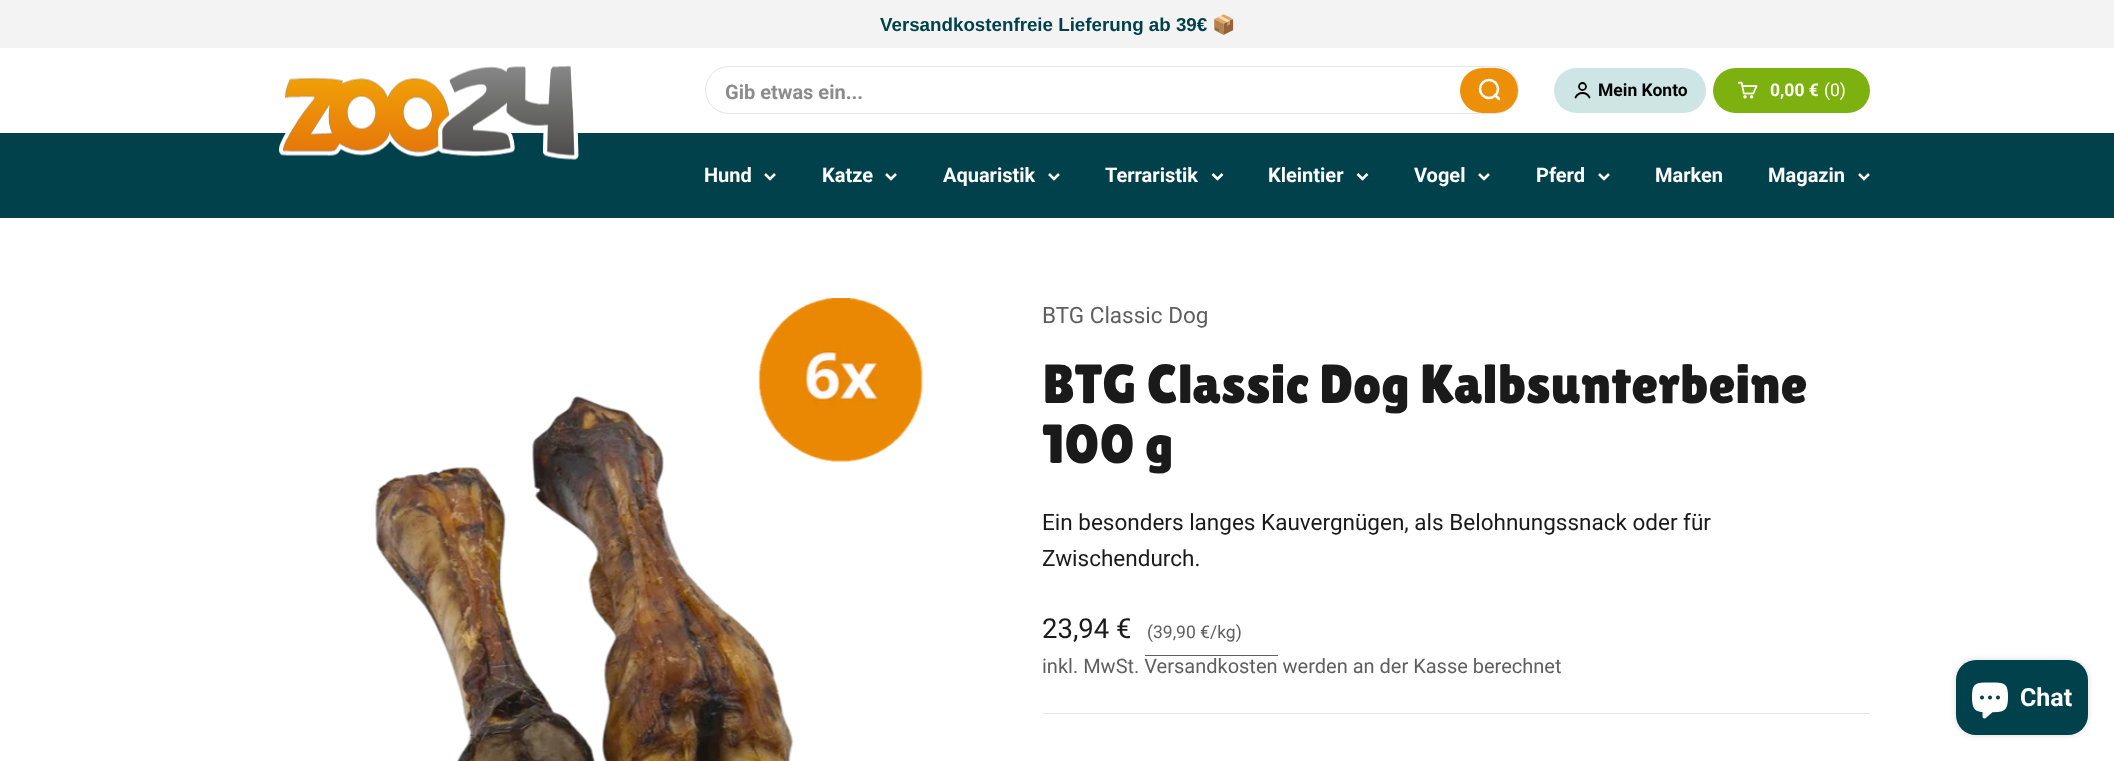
<svg xmlns="http://www.w3.org/2000/svg" width="2114" height="761">
<style>
.a{font:bold 18.75px Liberation Sans;fill:#00414b}
.b{font:bold 18.75px Noto Color Emoji;fill:#00414b}
.c{font:bold 20px Roboto;fill:#8c8c8c}
.d{font:bold 17.5px Roboto;fill:#000}
.e{font:bold 17.5px Roboto;fill:#fff}
.f{font:17.5px Roboto;fill:#fff}
.g{font:bold 20px Roboto;fill:#fff}
.h{font:22.5px Roboto;fill:#5f5f5f}
.i{font:55px Lilita One;fill:#1a1a1a}
.j{font:22.5px Roboto;fill:#1a1a1a}
.k{font:27.5px Roboto;fill:#1a1a1a}
.l{font:17.5px Roboto;fill:#5f5f5f}
.m{font:20px Roboto;fill:#5f5f5f}
.n{font:bold 25px Roboto;fill:#fff}
</style>
<rect width="100%" height="100%" fill="#fff"/>
<path fill="#f3f3f3" d="M0 0h2114v48H0z"/>
<path fill="#00414b" d="M0 133h2114v85H0z"/>
<image href="1.png" x="279" y="65" width="300" height="95"/>
<rect fill="none" stroke="#e4e4e4" x="705.5" y="66.5" width="813" height="47" rx="23.5"/>
<rect fill="#ec9009" x="1460" y="68" width="58" height="45" rx="22.5"/>
<circle fill="none" stroke="#fff" stroke-width="2.5" cx="1489" cy="89" r="9"/>
<path fill="none" stroke="#fff" stroke-width="2.5" stroke-linecap="round" stroke-linejoin="round" d="M1495 95l4 4"/>
<rect fill="#cde5e4" x="1554" y="68" width="152" height="45" rx="22.5"/>
<circle fill="none" stroke="#000" stroke-width="1.8" cx="1582.5" cy="86.5" r="3.5"/>
<path fill="none" stroke="#000" stroke-width="1.8" stroke-linecap="round" d="M1575.5 97.5c3-6 11-6 14 0"/>
<rect fill="#7cb10f" x="1713" y="68" width="157" height="45" rx="22.5"/>
<image href="2.png" x="1738" y="81" width="20" height="18"/>
<path fill="none" stroke="#fff" stroke-width="2.5" d="M765 174l5 5l5-5"/>
<path fill="none" stroke="#fff" stroke-width="2.5" d="M886 174l5 5l5-5"/>
<path fill="none" stroke="#fff" stroke-width="2.5" d="M1049 174l5 5l5-5"/>
<path fill="none" stroke="#fff" stroke-width="2.5" d="M1212.5 174l5 5l5-5"/>
<path fill="none" stroke="#fff" stroke-width="2.5" d="M1357.5 174l5 5l5-5"/>
<path fill="none" stroke="#fff" stroke-width="2.5" d="M1479 174l5 5l5-5"/>
<path fill="none" stroke="#fff" stroke-width="2.5" d="M1599 174l5 5l5-5"/>
<path fill="none" stroke="#fff" stroke-width="2.5" d="M1859 174l5 5l5-5"/>
<image href="3.png" x="375" y="298" width="548" height="463"/>
<path fill="#5f5f5f" d="M1145 655h133v1H1145z"/>
<path fill="#e4e4e4" d="M1043 713h827v1H1043z"/>
<rect fill="#00000026" filter="blur(3px)" x="1956" y="660" width="132" height="75" rx="20"/>
<rect fill="#00414b" x="1956" y="660" width="132" height="75" rx="20"/>
<image href="4.png" x="1972" y="682" width="36" height="37"/>
<text class="a" x="880" y="31">Versandkostenfreie Lieferung ab 39€</text>
<text class="b" x="1212" y="31">📦</text>
<text class="c" x="725" y="99">Gib etwas ein...</text>
<text class="d" x="1598" y="96">Mein Konto</text>
<text class="e" x="1770" y="96">0,00 €</text>
<text class="f" x="1824" y="96">(0)</text>
<text class="g" x="704" y="182">Hund</text>
<text class="g" x="822" y="182">Katze</text>
<text class="g" x="943" y="182">Aquaristik</text>
<text class="g" x="1105" y="182">Terraristik</text>
<text class="g" x="1268" y="182">Kleintier</text>
<text class="g" x="1414" y="182">Vogel</text>
<text class="g" x="1536" y="182">Pferd</text>
<text class="g" x="1655" y="182">Marken</text>
<text class="g" x="1768" y="182">Magazin</text>
<text class="h" x="1042" y="323">BTG Classic Dog</text>
<text class="i" x="1042" y="403">BTG Classic Dog Kalbsunterbeine</text>
<text class="i" x="1042" y="463">100 g</text>
<text class="j" x="1042" y="530">Ein besonders langes Kauvergnügen, als Belohnungssnack oder für</text>
<text class="j" x="1042" y="566">Zwischendurch.</text>
<text class="k" x="1042" y="638">23,94 €</text>
<text class="l" x="1147" y="638">(39,90 €/kg)</text>
<text class="m" x="1042" y="673">inkl. MwSt. Versandkosten werden an der Kasse berechnet</text>
<text class="n" x="2020" y="706">Chat</text>
</svg>
